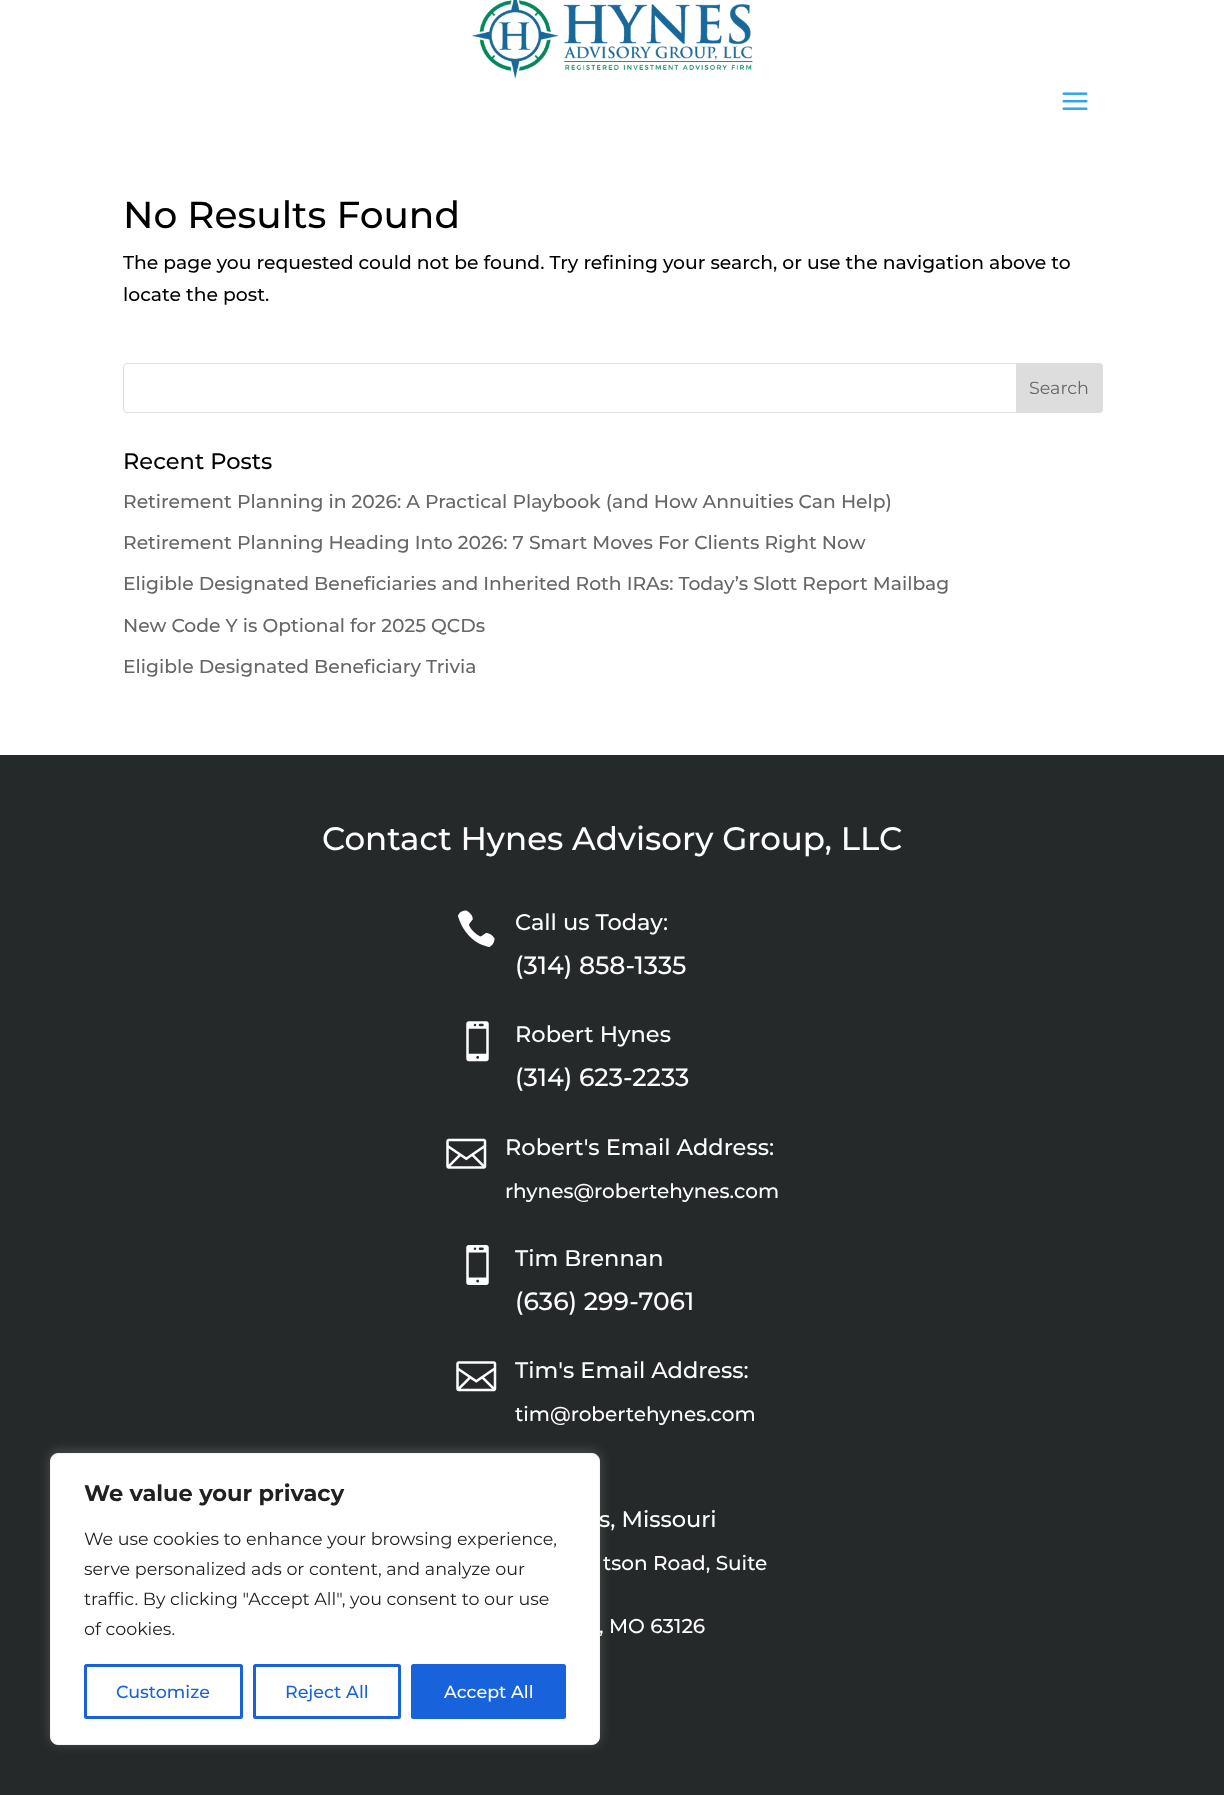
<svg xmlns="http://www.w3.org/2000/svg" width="1224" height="1795">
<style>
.a{font:500 37.5px Montserrat;fill:#000}
.b{font:500 18.75px Montserrat;fill:#000}
.c{font:17.5px Montserrat;fill:#666}
.d{font:500 22.5px Montserrat;fill:#000}
.e{font:500 18.75px Montserrat;fill:#666}
.f{font:500 32.5px Montserrat;fill:#fff}
.g{font:500 22.5px Montserrat;fill:#fff}
.h{font:500 25px Montserrat;fill:#fff}
.i{font:500 20px Montserrat;fill:#fff}
.j{font:bold 22.5px Montserrat;fill:#212121}
.k{font:17.5px Montserrat;fill:#212121}
.l{font:500 17.5px Montserrat;fill:#1863dc}
.m{font:500 17.5px Montserrat;fill:#fff}
</style>
<rect width="100%" height="100%" fill="#fff"/>
<image href="1.png" x="471" y="0" width="282" height="79"/>
<image href="2.png" x="1062" y="92" width="26" height="18"/>
<rect fill="none" stroke="#ddd" x="123.5" y="363.5" width="979" height="49" rx="3.5"/>
<path fill="#ddd" stroke="#ddd" d="M1016.5 363.5h82.5c2 0 3.5 1.5 3.5 3.5v42c0 2-1.5 3.5-3.5 3.5h-82.5z"/>
<path fill="#25292a" d="M0 755h1224v1040H0z"/>
<image href="3.png" x="457" y="910" width="38" height="38"/>
<image href="4.png" x="466" y="1021" width="23" height="41"/>
<image href="5.png" x="446" y="1138" width="41" height="31"/>
<image href="6.png" x="466" y="1245" width="23" height="40"/>
<image href="7.png" x="456" y="1361" width="41" height="31"/>
<rect fill="#acabab4d" filter="blur(6px)" x="50" y="1451" width="550" height="293" rx="8"/>
<rect fill="#fff" stroke="#f4f4f4" x="50.5" y="1453.5" width="549" height="291" rx="7.5"/>
<rect fill="none" stroke="#1863dc" stroke-width="3" x="85.5" y="1665.5" width="156" height="52" rx="1"/>
<rect fill="none" stroke="#1863dc" stroke-width="3" x="254.5" y="1665.5" width="145" height="52" rx="1"/>
<rect fill="#1863dc" stroke="#1863dc" stroke-width="3" x="412.5" y="1665.5" width="152" height="52" rx="1"/>
<text class="a" x="123" y="228">No Results Found</text>
<text class="b" x="123" y="269">The page you requested could not be found. Try refining your search, or use the navigation above to</text>
<text class="b" x="123" y="301">locate the post.</text>
<text class="c" x="1029" y="394">Search</text>
<text class="d" x="123" y="469">Recent Posts</text>
<text class="e" x="123" y="508">Retirement Planning in 2026: A Practical Playbook (and How Annuities Can Help)</text>
<text class="e" x="123" y="549">Retirement Planning Heading Into 2026: 7 Smart Moves For Clients Right Now</text>
<text class="e" x="123" y="590">Eligible Designated Beneficiaries and Inherited Roth IRAs: Today’s Slott Report Mailbag</text>
<text class="e" x="123" y="632">New Code Y is Optional for 2025 QCDs</text>
<text class="e" x="123" y="673">Eligible Designated Beneficiary Trivia</text>
<text class="f" x="322" y="850">Contact Hynes Advisory Group, LLC</text>
<text class="g" x="515" y="930">Call us Today:</text>
<text class="h" x="515" y="974">(314) 858-1335</text>
<text class="g" x="515" y="1042">Robert Hynes</text>
<text class="h" x="515" y="1086">(314) 623-2233</text>
<text class="g" x="505" y="1155">Robert's Email Address:</text>
<text class="i" x="505" y="1198">rhynes@robertehynes.com</text>
<text class="g" x="515" y="1266">Tim Brennan</text>
<text class="h" x="515" y="1310">(636) 299-7061</text>
<text class="g" x="515" y="1378">Tim's Email Address:</text>
<text class="i" x="515" y="1421">tim@robertehynes.com</text>
<text class="g" x="599" y="1527">s, Missouri</text>
<text class="i" x="603" y="1570">tson Road, Suite</text>
<text class="i" x="599" y="1633">, MO 63126</text>
<text class="j" x="84" y="1501">We value your privacy</text>
<text class="k" x="84" y="1545">We use cookies to enhance your browsing experience,</text>
<text class="k" x="84" y="1575">serve personalized ads or content, and analyze our</text>
<text class="k" x="84" y="1605">traffic. By clicking "Accept All", you consent to our use</text>
<text class="k" x="84" y="1635">of cookies.</text>
<text class="l" x="116" y="1698">Customize</text>
<text class="l" x="285" y="1698">Reject All</text>
<text class="m" x="444" y="1698">Accept All</text>
</svg>
